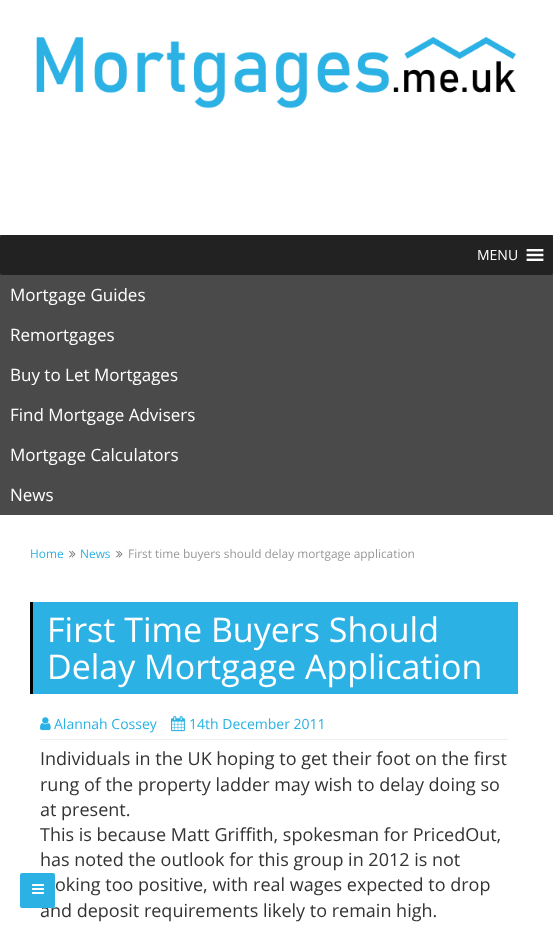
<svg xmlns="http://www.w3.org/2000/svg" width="553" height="928">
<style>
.a{font:14px Open Sans;fill:#fff}
.b{font:17px Open Sans;fill:#fff}
.c{font:11.9px Open Sans;fill:#2bb1e4}
.d{font:11.9px Open Sans;fill:#999}
.e{font:34px Open Sans;fill:#fff}
.f{font:14px Open Sans;fill:#2bb1e4}
.g{font:18px Open Sans;fill:#333}
</style>
<rect width="100%" height="100%" fill="#fff"/>
<image href="1.png" x="36" y="37" width="480" height="72"/>
<path fill="#4a4a4a" d="M0 235h553v280H0z"/>
<rect fill="#222" y="235" width="553" height="40" rx="2"/>
<image href="2.png" x="526" y="249" width="18" height="12"/>
<image href="3.png" x="69" y="550" width="7" height="8"/>
<image href="3.png" x="116" y="550" width="7" height="8"/>
<path fill="#2bb1e4" d="M33 602h485v92H33z"/>
<path fill="#000" d="M30 602h3v92H30z"/>
<image href="4.png" x="40" y="717" width="11" height="14"/>
<image href="5.png" x="171" y="716" width="14" height="16"/>
<path fill="#eee" d="M40 739h468v1H40z"/>
<text class="a" x="477" y="260">MENU</text>
<text class="b" x="10" y="301">Mortgage Guides</text>
<text class="b" x="10" y="341">Remortgages</text>
<text class="b" x="10" y="381">Buy to Let Mortgages</text>
<text class="b" x="10" y="421">Find Mortgage Advisers</text>
<text class="b" x="10" y="461">Mortgage Calculators</text>
<text class="b" x="10" y="501">News</text>
<text class="c" x="30" y="558">Home</text>
<text class="c" x="80" y="558">News</text>
<text class="d" x="128" y="558">First time buyers should delay mortgage application</text>
<text class="e" x="47" y="642">First Time Buyers Should</text>
<text class="e" x="47" y="679">Delay Mortgage Application</text>
<text class="f" x="54" y="729">Alannah Cossey</text>
<text class="f" x="189" y="729">14th December 2011</text>
<text class="g" x="40" y="765">Individuals in the UK hoping to get their foot on the first</text>
<text class="g" x="40" y="791">rung of the property ladder may wish to delay doing so</text>
<text class="g" x="40" y="816">at present.</text>
<text class="g" x="40" y="841">This is because Matt Griffith, spokesman for PricedOut,</text>
<text class="g" x="40" y="866">has noted the outlook for this group in 2012 is not</text>
<text class="g" x="55" y="891">oking too positive, with real wages expected to drop</text>
<text class="g" x="40" y="917">and deposit requirements likely to remain high.</text>
<rect fill="#2bb1e4" x="20" y="873" width="35" height="35" rx="2"/>
<image href="6.png" x="32" y="884" width="12" height="10"/>
</svg>
